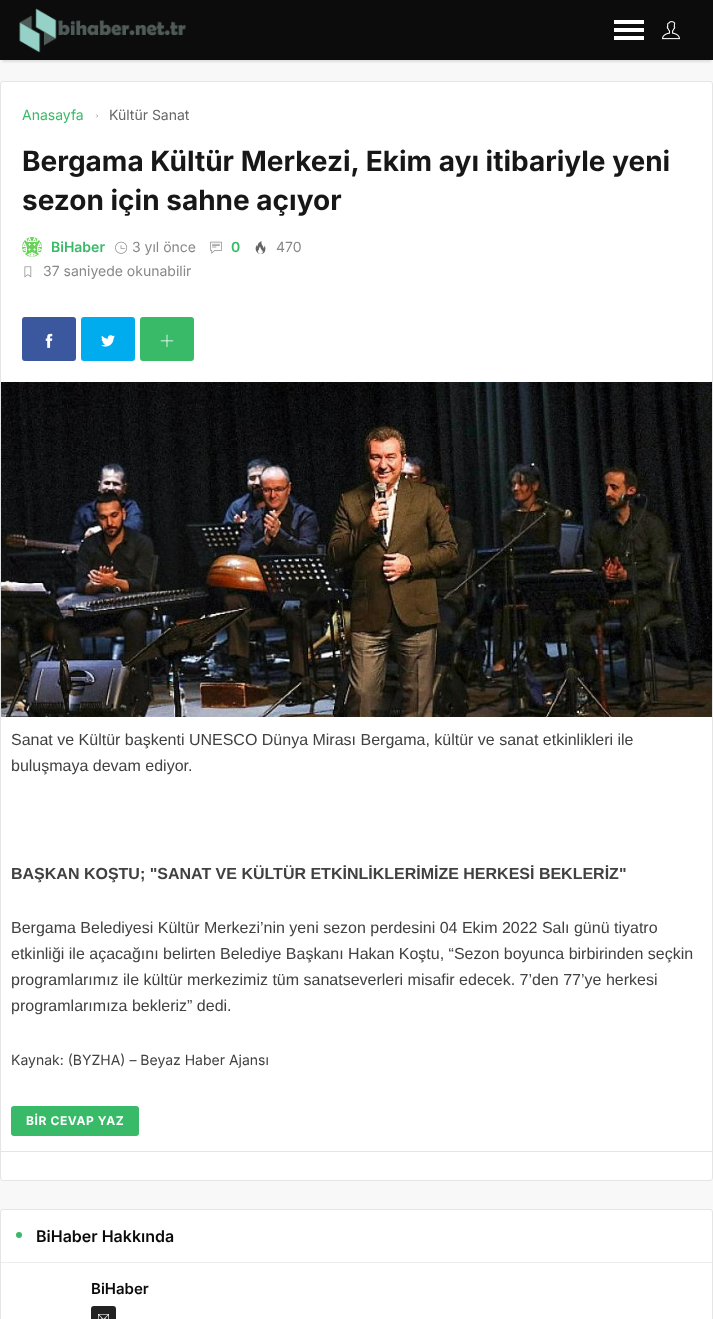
<svg xmlns="http://www.w3.org/2000/svg" width="713" height="1319">
<style>
.a{font:14px Inter;fill:#39ba68}
.b{font:14px Inter;fill:#666}
.c{font:bold 28px Inter;fill:#171717}
.d{font:600 14px Inter;fill:#39ba68}
.e{font:14px Inter;fill:#888}
.f{font:16px Liberation Sans;fill:#414141}
.g{font:bold 16px Liberation Sans;fill:#414141}
.h{font:14px Inter;fill:#414141}
.i{font:bold 12px Inter;letter-spacing:0.6px;fill:#fff}
.j{font:600 16px Inter;fill:#0a0a0a}
.k{font:600 15px Inter;fill:#0a0a0a}
</style>
<rect width="100%" height="100%" fill="#f8f8f8"/>
<path fill="#0000001a" filter="blur(1px)" d="M2 6h709v56H2z"/>
<path fill="#0c0c0c" d="M0 0h713v60H0z"/>
<image href="1.png" x="19" y="8" width="167" height="45"/>
<path fill="#fff" d="M614 20h30v4H614z"/>
<path fill="#fff" d="M614 28h30v4H614z"/>
<path fill="#fff" d="M614 36h30v4H614z"/>
<image href="2.png" x="662" y="21" width="18" height="19"/>
<rect fill="#fff" stroke="#e5e5e5" x="0.5" y="81.5" width="712" height="1099" rx="2.5"/>
<path fill="#0a0a0a" d="M98 116l-2.5 2l2-2l-2-2.5z"/>
<image href="3.png" x="22" y="237" width="20" height="20"/>
<image href="4.png" x="115" y="241" width="13" height="13"/>
<image href="5.png" x="210" y="241" width="12" height="13"/>
<image href="6.png" x="255" y="241" width="11" height="13"/>
<image href="7.png" x="24" y="266" width="8" height="12"/>
<rect fill="#3b579d" x="22" y="317" width="54" height="44" rx="3"/>
<image href="8.png" x="45" y="333" width="8" height="15"/>
<rect fill="#00aced" x="81" y="317" width="54" height="44" rx="3"/>
<image href="9.png" x="101" y="335" width="14" height="12"/>
<rect fill="#39ba68" x="140" y="317" width="54" height="44" rx="3"/>
<image href="10.png" x="160" y="334" width="14" height="13"/>
<image href="11.png" x="1" y="382" width="711" height="335"/>
<rect fill="#39ba68" x="11" y="1106" width="128" height="30" rx="3"/>
<path fill="#e5e5e5" d="M1 1151h711v1H1z"/>
<rect fill="#fff" stroke="#e5e5e5" x="0.5" y="1209.5" width="712" height="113" rx="2.5"/>
<path fill="#ededed" d="M1 1262h711v1H1z"/>
<circle fill="#39ba68" cx="19" cy="1235" r="3"/>
<rect fill="#222" x="91" y="1306" width="25" height="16" rx="3"/>
<image href="12.png" x="98" y="1314" width="11" height="5"/>
<text class="a" x="22" y="120">Anasayfa</text>
<text class="b" x="109" y="120">Kültür Sanat</text>
<text class="c" x="22" y="171">Bergama Kültür Merkezi, Ekim ayı itibariyle yeni</text>
<text class="c" x="22" y="210">sezon için sahne açıyor</text>
<text class="d" x="51" y="252">BiHaber</text>
<text class="e" x="132" y="252">3 yıl önce</text>
<text class="d" x="231" y="252">0</text>
<text class="e" x="276" y="252">470</text>
<text class="e" x="43" y="276">37 saniyede okunabilir</text>
<text class="f" x="11" y="745">Sanat ve Kültür başkenti UNESCO Dünya Mirası Bergama, kültür ve sanat etkinlikleri ile</text>
<text class="f" x="11" y="771">buluşmaya devam ediyor.</text>
<text class="g" x="11" y="879">BAŞKAN KOŞTU; "SANAT VE KÜLTÜR ETKİNLİKLERİMİZE HERKESİ BEKLERİZ"</text>
<text class="f" x="11" y="933">Bergama Belediyesi Kültür Merkezi’nin yeni sezon perdesini 04 Ekim 2022 Salı günü tiyatro</text>
<text class="f" x="11" y="959">etkinliği ile açacağını belirten Belediye Başkanı Hakan Koştu, “Sezon boyunca birbirinden seçkin</text>
<text class="f" x="11" y="985">programlarımız ile kültür merkezimiz tüm sanatseverleri misafir edecek. 7’den 77’ye herkesi</text>
<text class="f" x="11" y="1011">programlarımıza bekleriz” dedi.</text>
<text class="h" x="11" y="1065">Kaynak: (BYZHA) – Beyaz Haber Ajansı</text>
<text class="i" x="26" y="1125">BİR CEVAP YAZ</text>
<text class="j" x="36" y="1242">BiHaber Hakkında</text>
<text class="k" x="91" y="1294">BiHaber</text>
</svg>
